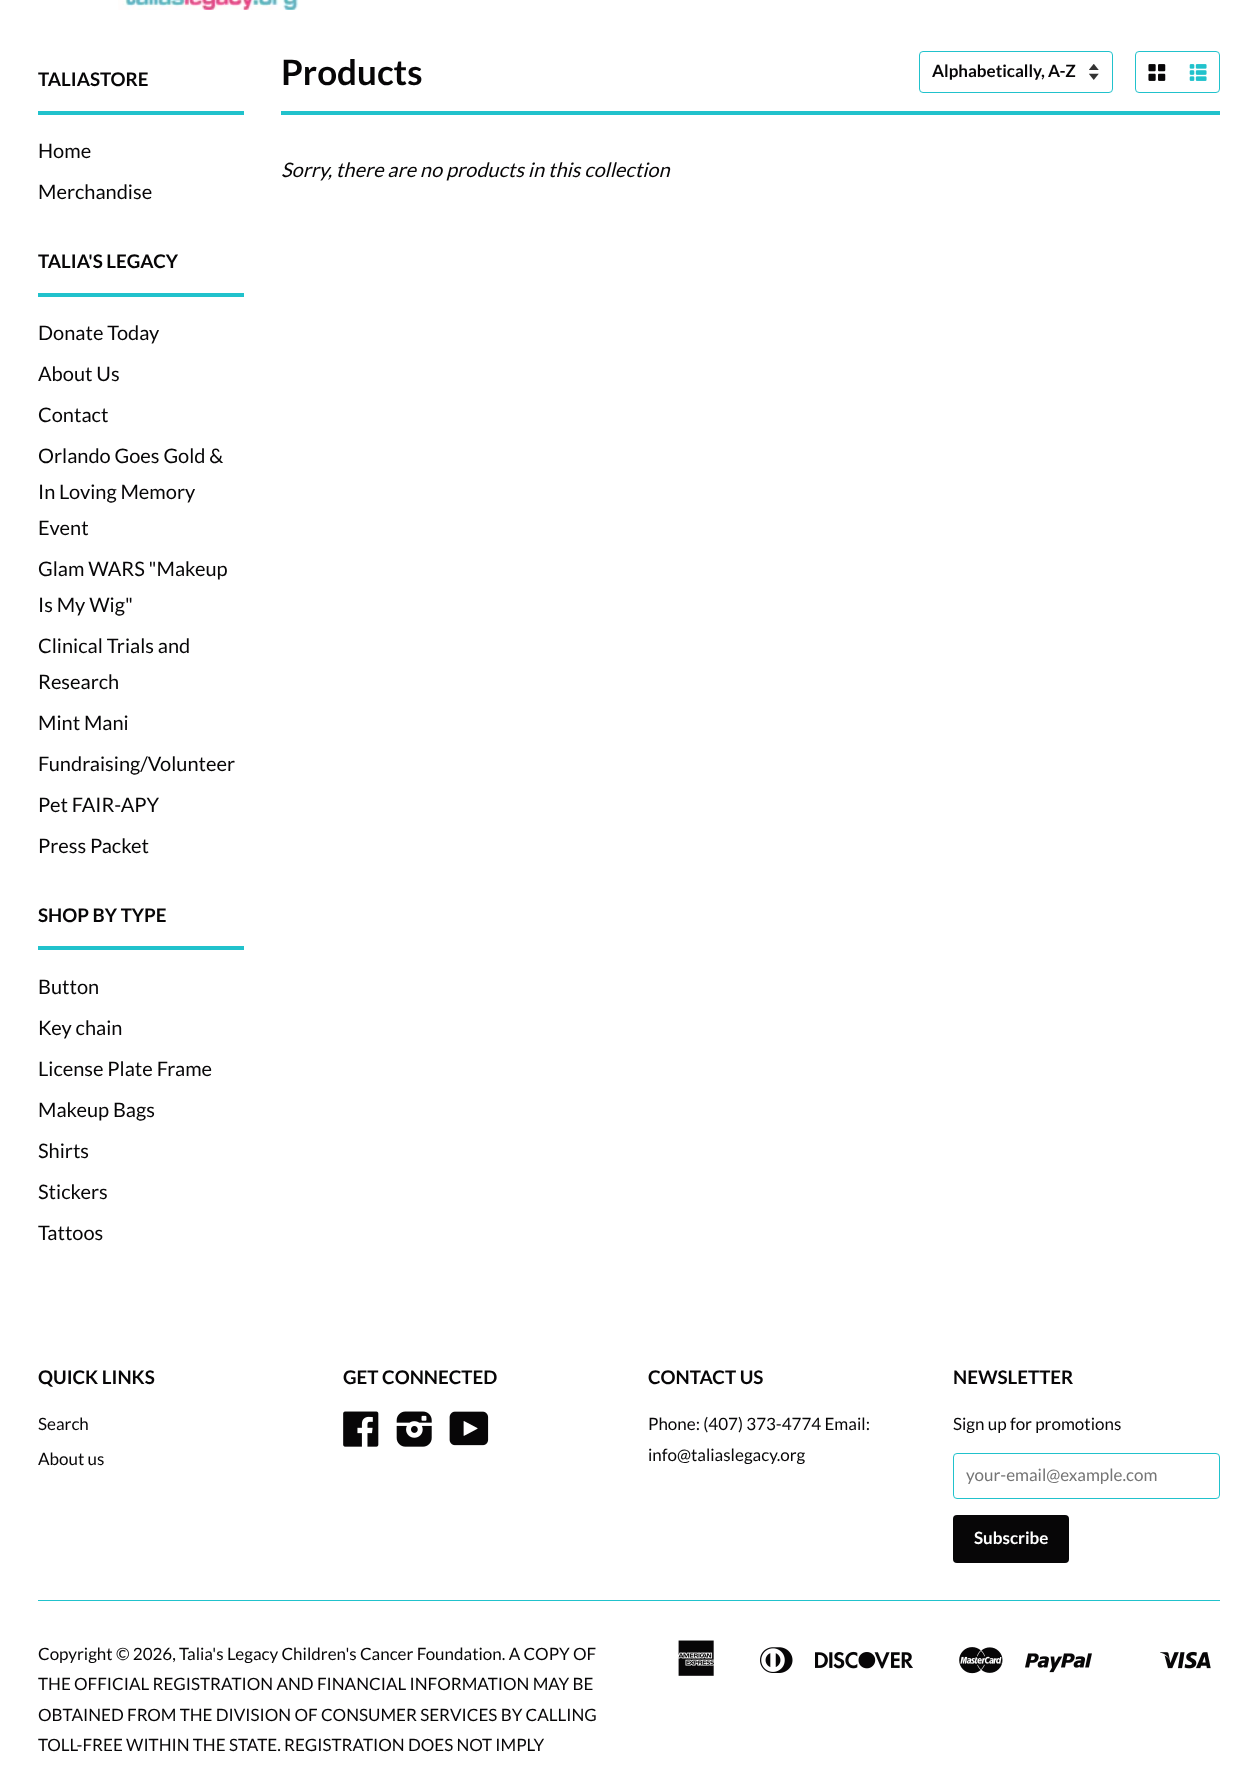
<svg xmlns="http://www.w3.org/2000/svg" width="1257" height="1773">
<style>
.a{font:bold 18.75px Lato;fill:#070607}
.b{font:20px Lato;fill:#070607}
.c{font:bold 35px Lato;fill:#070607}
.d{font:bold 17px Lato;fill:#070607}
.e{font:italic 20px Lato;fill:#070607}
.f{font:17px Lato;fill:#070607}
.g{font:17px Lato;fill:#757575}
.h{font:bold 17px Lato;fill:#fff}
</style>
<rect width="100%" height="100%" fill="#fff"/>
<image href="1.png" x="118" y="0" width="181" height="10"/>
<path fill="#21c2cc" d="M38 111h206v4H38z"/>
<path fill="#21c2cc" d="M38 293h206v4H38z"/>
<path fill="#21c2cc" d="M38 946h206v4H38z"/>
<path fill="#21c2cc" d="M281 111h939v4H281z"/>
<image href="2.png" x="1089" y="64" width="10" height="16"/>
<rect fill="none" stroke="#21c2cc" x="919.5" y="51.5" width="193" height="41" rx="3.5"/>
<rect fill="none" stroke="#21c2cc" x="1135.5" y="51.5" width="84" height="41" rx="3.5"/>
<image href="3.png" x="1148" y="64" width="18" height="17"/>
<image href="4.png" x="1189" y="64" width="18" height="17"/>
<image href="5.png" x="343" y="1411" width="36" height="36"/>
<image href="6.png" x="396" y="1411" width="36" height="36"/>
<image href="7.png" x="449" y="1411" width="40" height="35"/>
<rect fill="none" stroke="#21c2cc" x="953.5" y="1453.5" width="266" height="45" rx="3.5"/>
<rect fill="#070607" x="953" y="1515" width="116" height="48" rx="4"/>
<path fill="#21c2cc" d="M38 1600h1182v1H38z"/>
<image href="8.png" x="678" y="1640" width="36" height="36"/>
<image href="9.png" x="760" y="1647" width="33" height="26"/>
<image href="10.png" x="815" y="1651" width="98" height="18"/>
<image href="11.png" x="959" y="1647" width="44" height="27"/>
<image href="12.png" x="1025" y="1653" width="67" height="20"/>
<image href="13.png" x="1160" y="1651" width="51" height="18"/>
<text class="a" x="38" y="86">TALIASTORE</text>
<text class="b" x="38" y="158">Home</text>
<text class="b" x="38" y="199">Merchandise</text>
<text class="a" x="38" y="268">TALIA'S LEGACY</text>
<text class="b" x="38" y="340">Donate Today</text>
<text class="b" x="38" y="381">About Us</text>
<text class="b" x="38" y="422">Contact</text>
<text class="b" x="38" y="463">Orlando Goes Gold &amp;</text>
<text class="b" x="38" y="499">In Loving Memory</text>
<text class="b" x="38" y="535">Event</text>
<text class="b" x="38" y="576">Glam WARS "Makeup</text>
<text class="b" x="38" y="612">Is My Wig"</text>
<text class="b" x="38" y="653">Clinical Trials and</text>
<text class="b" x="38" y="689">Research</text>
<text class="b" x="38" y="730">Mint Mani</text>
<text class="b" x="38" y="771">Fundraising/Volunteer</text>
<text class="b" x="38" y="812">Pet FAIR-APY</text>
<text class="b" x="38" y="853">Press Packet</text>
<text class="a" x="38" y="922">SHOP BY TYPE</text>
<text class="b" x="38" y="994">Button</text>
<text class="b" x="38" y="1035">Key chain</text>
<text class="b" x="38" y="1076">License Plate Frame</text>
<text class="b" x="38" y="1117">Makeup Bags</text>
<text class="b" x="38" y="1158">Shirts</text>
<text class="b" x="38" y="1199">Stickers</text>
<text class="b" x="38" y="1240">Tattoos</text>
<text class="c" x="281" y="85">Products</text>
<text class="d" x="932" y="77">Alphabetically, A-Z</text>
<text class="e" x="281" y="177">Sorry, there are no products in this collection</text>
<text class="a" x="38" y="1384">QUICK LINKS</text>
<text class="f" x="38" y="1430">Search</text>
<text class="f" x="38" y="1465">About us</text>
<text class="a" x="343" y="1384">GET CONNECTED</text>
<text class="a" x="648" y="1384">CONTACT US</text>
<text class="f" x="648" y="1430">Phone: (407) 373-4774 Email:</text>
<text class="f" x="648" y="1461">info@taliaslegacy.org</text>
<text class="a" x="953" y="1384">NEWSLETTER</text>
<text class="f" x="953" y="1430">Sign up for promotions</text>
<text class="g" x="966" y="1481">your-email@example.com</text>
<text class="h" x="974" y="1544">Subscribe</text>
<text class="f" x="38" y="1660">Copyright © 2026, Talia's Legacy Children's Cancer Foundation. A COPY OF</text>
<text class="f" x="38" y="1690">THE OFFICIAL REGISTRATION AND FINANCIAL INFORMATION MAY BE</text>
<text class="f" x="38" y="1721">OBTAINED FROM THE DIVISION OF CONSUMER SERVICES BY CALLING</text>
<text class="f" x="38" y="1751">TOLL-FREE WITHIN THE STATE. REGISTRATION DOES NOT IMPLY</text>
</svg>
